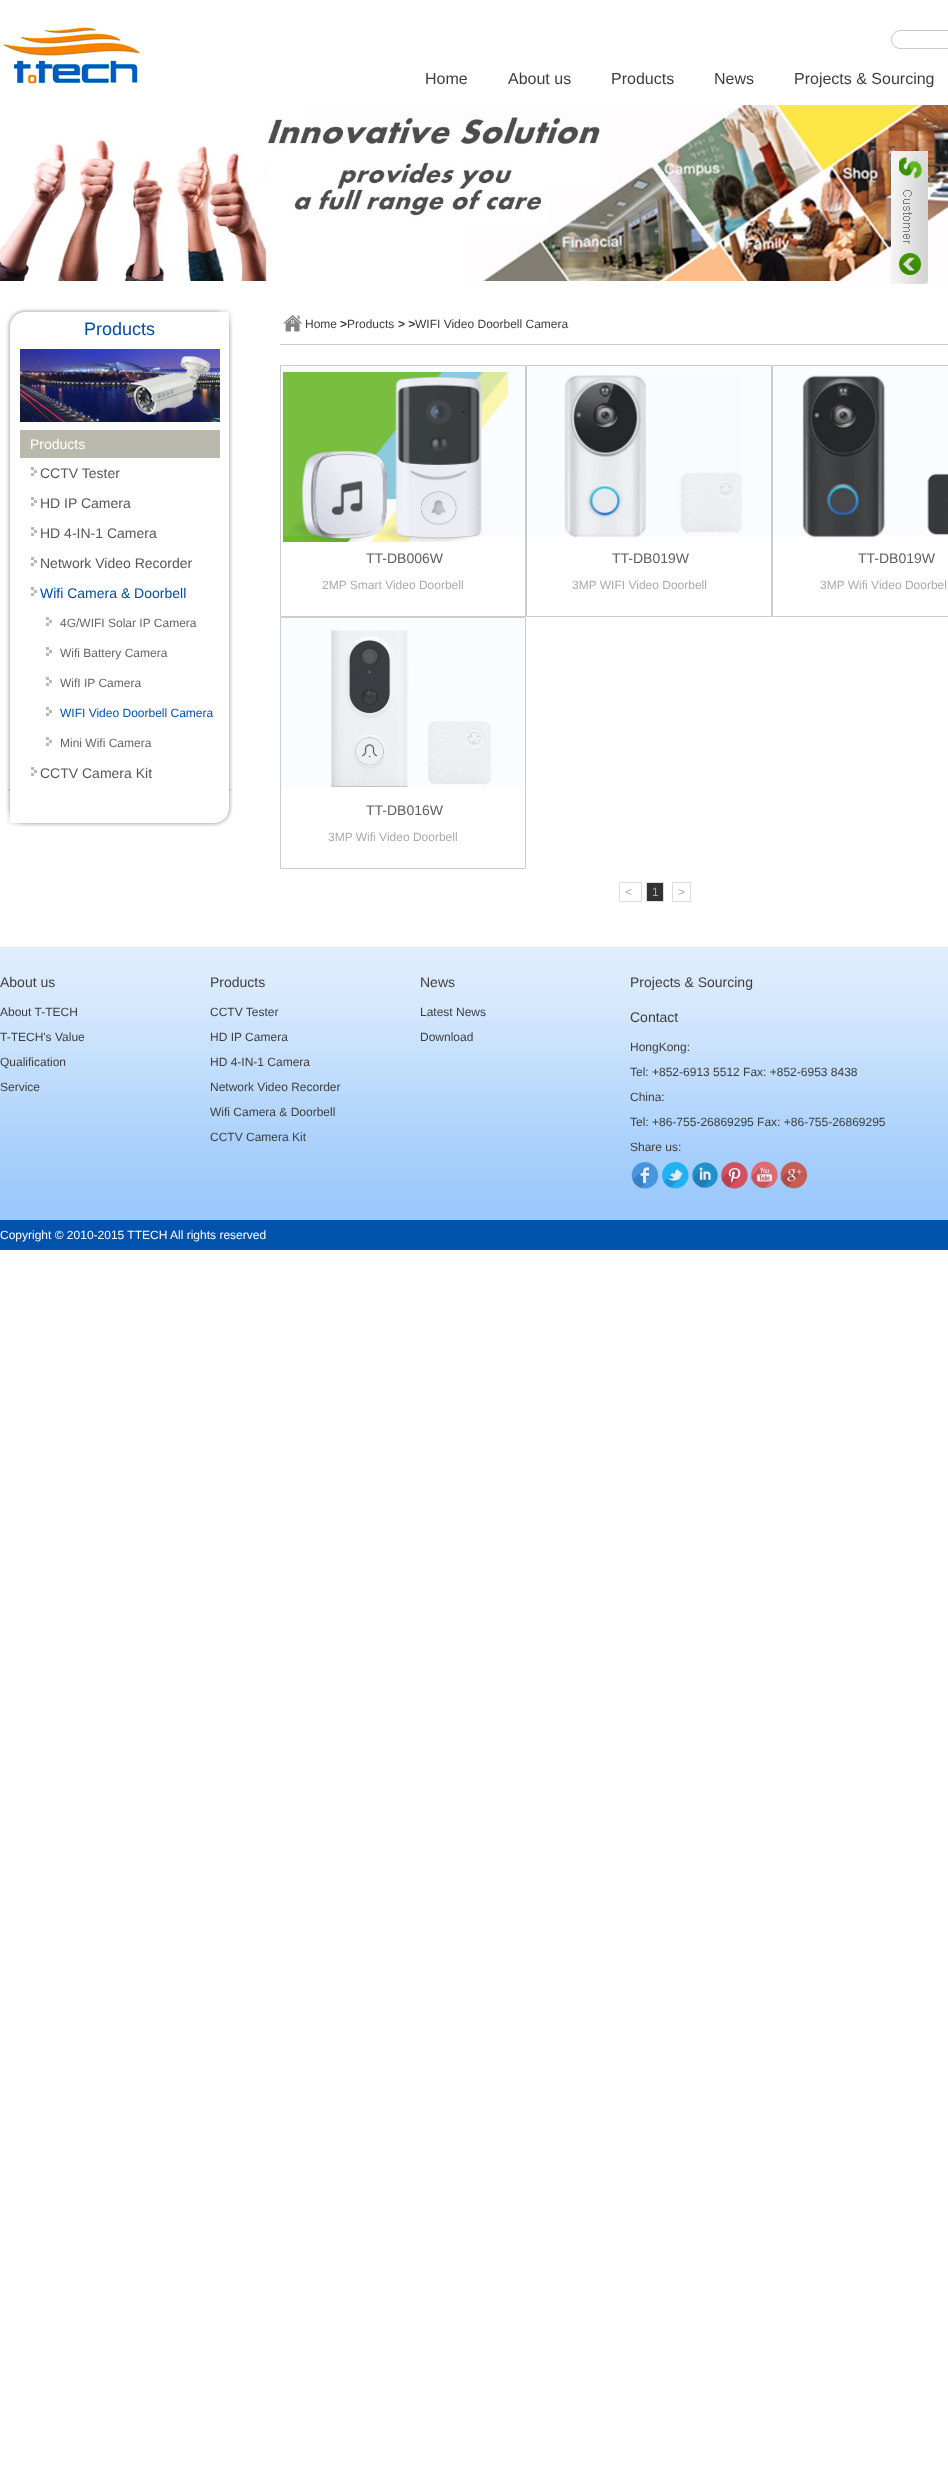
<svg xmlns="http://www.w3.org/2000/svg" width="948" height="2484">
<style>
.a{font:16px Liberation Sans;fill:#3e3e3e}
.b{font:18px Liberation Sans;fill:#014da9}
.c{font:14px Liberation Sans;fill:#fff}
.d{font:14px Liberation Sans;fill:#575757}
.e{font:14px Liberation Sans;fill:#014da9}
.f{font:12px Liberation Sans;fill:#666}
.g{font:12px Liberation Sans;fill:#0153b6}
.h{font:12px Liberation Sans;fill:#3e3e3e}
.i{font:bold 12px Liberation Sans;fill:#3e3e3e}
.j{font:14px Liberation Sans;fill:#606060}
.k{font:12px Liberation Sans;fill:#aaa}
.l{font:14px Liberation Sans;fill:#3e3e3e}
.m{font:12px Liberation Sans;fill:#fff}
</style>
<rect width="100%" height="100%" fill="#fff"/>
<path fill="#fafdff" d="M281 618h244v170H281z"/>
<path fill="#fafdff" d="M773 366h175v170H773z"/>
<path fill="#fafdff" d="M527 366h244v170H527z"/>
<path fill="#fafdff" d="M281 366h244v170H281z"/>
<image href="1.png" x="2" y="27" width="138" height="57"/>
<image href="2.png" x="891" y="30" width="57" height="19"/>
<image href="3.png" x="0" y="105" width="948" height="176"/>
<image href="4.png" x="891" y="151" width="37" height="133"/>
<image href="5.png" x="6" y="308" width="227" height="41"/>
<image href="6.png" x="6" y="349" width="227" height="439"/>
<image href="7.png" x="20" y="349" width="200" height="73"/>
<path fill="#b9b9ad" d="M20 430h200v28H20z"/>
<image href="8.png" x="31" y="467" width="6" height="9"/>
<image href="8.png" x="31" y="497" width="6" height="9"/>
<image href="8.png" x="31" y="527" width="6" height="9"/>
<image href="8.png" x="31" y="557" width="6" height="9"/>
<image href="8.png" x="31" y="587" width="6" height="9"/>
<image href="8.png" x="46" y="617" width="6" height="9"/>
<image href="8.png" x="46" y="647" width="6" height="9"/>
<image href="8.png" x="46" y="677" width="6" height="9"/>
<image href="8.png" x="46" y="707" width="6" height="9"/>
<image href="8.png" x="46" y="737" width="6" height="9"/>
<image href="8.png" x="31" y="767" width="6" height="9"/>
<image href="9.png" x="6" y="788" width="227" height="39"/>
<image href="10.png" x="283" y="315" width="20" height="17"/>
<path fill="#ccc" d="M280 344h668v1H280z"/>
<path fill="none" stroke="#ccc" d="M280.5 365.5h245v251H280.5z"/>
<image href="11.png" x="283" y="372" width="225" height="170"/>
<path fill="none" stroke="#ccc" d="M526.5 365.5h245v251H526.5z"/>
<image href="12.png" x="564" y="375" width="179" height="163"/>
<path fill="none" stroke="#ccc" d="M772.5 365.5h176v251H772.5z"/>
<image href="13.png" x="802" y="375" width="146" height="163"/>
<path fill="none" stroke="#ccc" d="M280.5 617.5h245v251H280.5z"/>
<image href="14.png" x="331" y="630" width="161" height="157"/>
<path fill="none" stroke="#ddd" d="M619.5 882.5h22v19H619.5z"/>
<path fill="#333" stroke="#e0e0e0" d="M646.5 882.5h17v19H646.5z"/>
<path fill="none" stroke="#ddd" d="M672.5 882.5h18v19H672.5z"/>
<image href="15.png" x="0" y="947" width="948" height="273"/>
<image href="16.png" x="631" y="1162" width="28" height="27"/>
<image href="17.png" x="662" y="1162" width="27" height="27"/>
<image href="18.png" x="692" y="1162" width="26" height="26"/>
<image href="19.png" x="721" y="1162" width="27" height="27"/>
<image href="20.png" x="751" y="1161" width="27" height="27"/>
<image href="21.png" x="780" y="1161" width="28" height="28"/>
<path fill="#0052ad" d="M0 1220h948v30H0z"/>
<text class="a" x="425" y="84">Home</text>
<text class="a" x="508" y="84">About us</text>
<text class="a" x="611" y="84">Products</text>
<text class="a" x="714" y="84">News</text>
<text class="a" x="794" y="84">Projects &amp; Sourcing</text>
<text class="b" x="84" y="335">Products</text>
<text class="c" x="30" y="449">Products</text>
<text class="d" x="40" y="478">CCTV Tester</text>
<text class="d" x="40" y="508">HD IP Camera</text>
<text class="d" x="40" y="538">HD 4-IN-1 Camera</text>
<text class="d" x="40" y="568">Network Video Recorder</text>
<text class="e" x="40" y="598">Wifi Camera &amp; Doorbell</text>
<text class="f" x="60" y="627">4G/WIFI Solar IP Camera</text>
<text class="f" x="60" y="657">Wifi Battery Camera</text>
<text class="f" x="60" y="687">WifI IP Camera</text>
<text class="g" x="60" y="717">WIFI Video Doorbell Camera</text>
<text class="f" x="60" y="747">Mini Wifi Camera</text>
<text class="d" x="40" y="778">CCTV Camera Kit</text>
<text class="h" x="305" y="328">Home</text>
<text class="i" x="340" y="328">&gt;</text>
<text class="h" x="347" y="328">Products</text>
<text class="i" x="398" y="328">&gt; &gt;</text>
<text class="h" x="415" y="328">WIFI Video Doorbell Camera</text>
<text class="j" x="366" y="563">TT-DB006W</text>
<text class="k" x="322" y="589">2MP Smart Video Doorbell</text>
<text class="j" x="612" y="563">TT-DB019W</text>
<text class="k" x="572" y="589">3MP WIFI Video Doorbell</text>
<text class="j" x="858" y="563">TT-DB019W</text>
<text class="k" x="820" y="589">3MP Wifi Video Doorbel</text>
<text class="j" x="366" y="815">TT-DB016W</text>
<text class="k" x="328" y="841">3MP Wifi Video Doorbell</text>
<text class="k" x="625" y="896">&lt;</text>
<text class="k" x="652" y="896">1</text>
<text class="k" x="678" y="896">&gt;</text>
<text class="l" x="0" y="987">About us</text>
<text class="h" x="0" y="1016">About T-TECH</text>
<text class="h" x="0" y="1041">T-TECH's Value</text>
<text class="h" x="0" y="1066">Qualification</text>
<text class="h" x="0" y="1091">Service</text>
<text class="l" x="210" y="987">Products</text>
<text class="h" x="210" y="1016">CCTV Tester</text>
<text class="h" x="210" y="1041">HD IP Camera</text>
<text class="h" x="210" y="1066">HD 4-IN-1 Camera</text>
<text class="h" x="210" y="1091">Network Video Recorder</text>
<text class="h" x="210" y="1116">Wifi Camera &amp; Doorbell</text>
<text class="h" x="210" y="1141">CCTV Camera Kit</text>
<text class="l" x="420" y="987">News</text>
<text class="h" x="420" y="1016">Latest News</text>
<text class="h" x="420" y="1041">Download</text>
<text class="l" x="630" y="987">Projects &amp; Sourcing</text>
<text class="l" x="630" y="1022">Contact</text>
<text class="h" x="630" y="1051">HongKong:</text>
<text class="h" x="630" y="1076">Tel: +852-6913 5512 Fax: +852-6953 8438</text>
<text class="h" x="630" y="1101">China:</text>
<text class="h" x="630" y="1126">Tel: +86-755-26869295 Fax: +86-755-26869295</text>
<text class="h" x="630" y="1151">Share us:</text>
<text class="m" x="0" y="1239">Copyright © 2010-2015 TTECH All rights reserved</text>
</svg>
